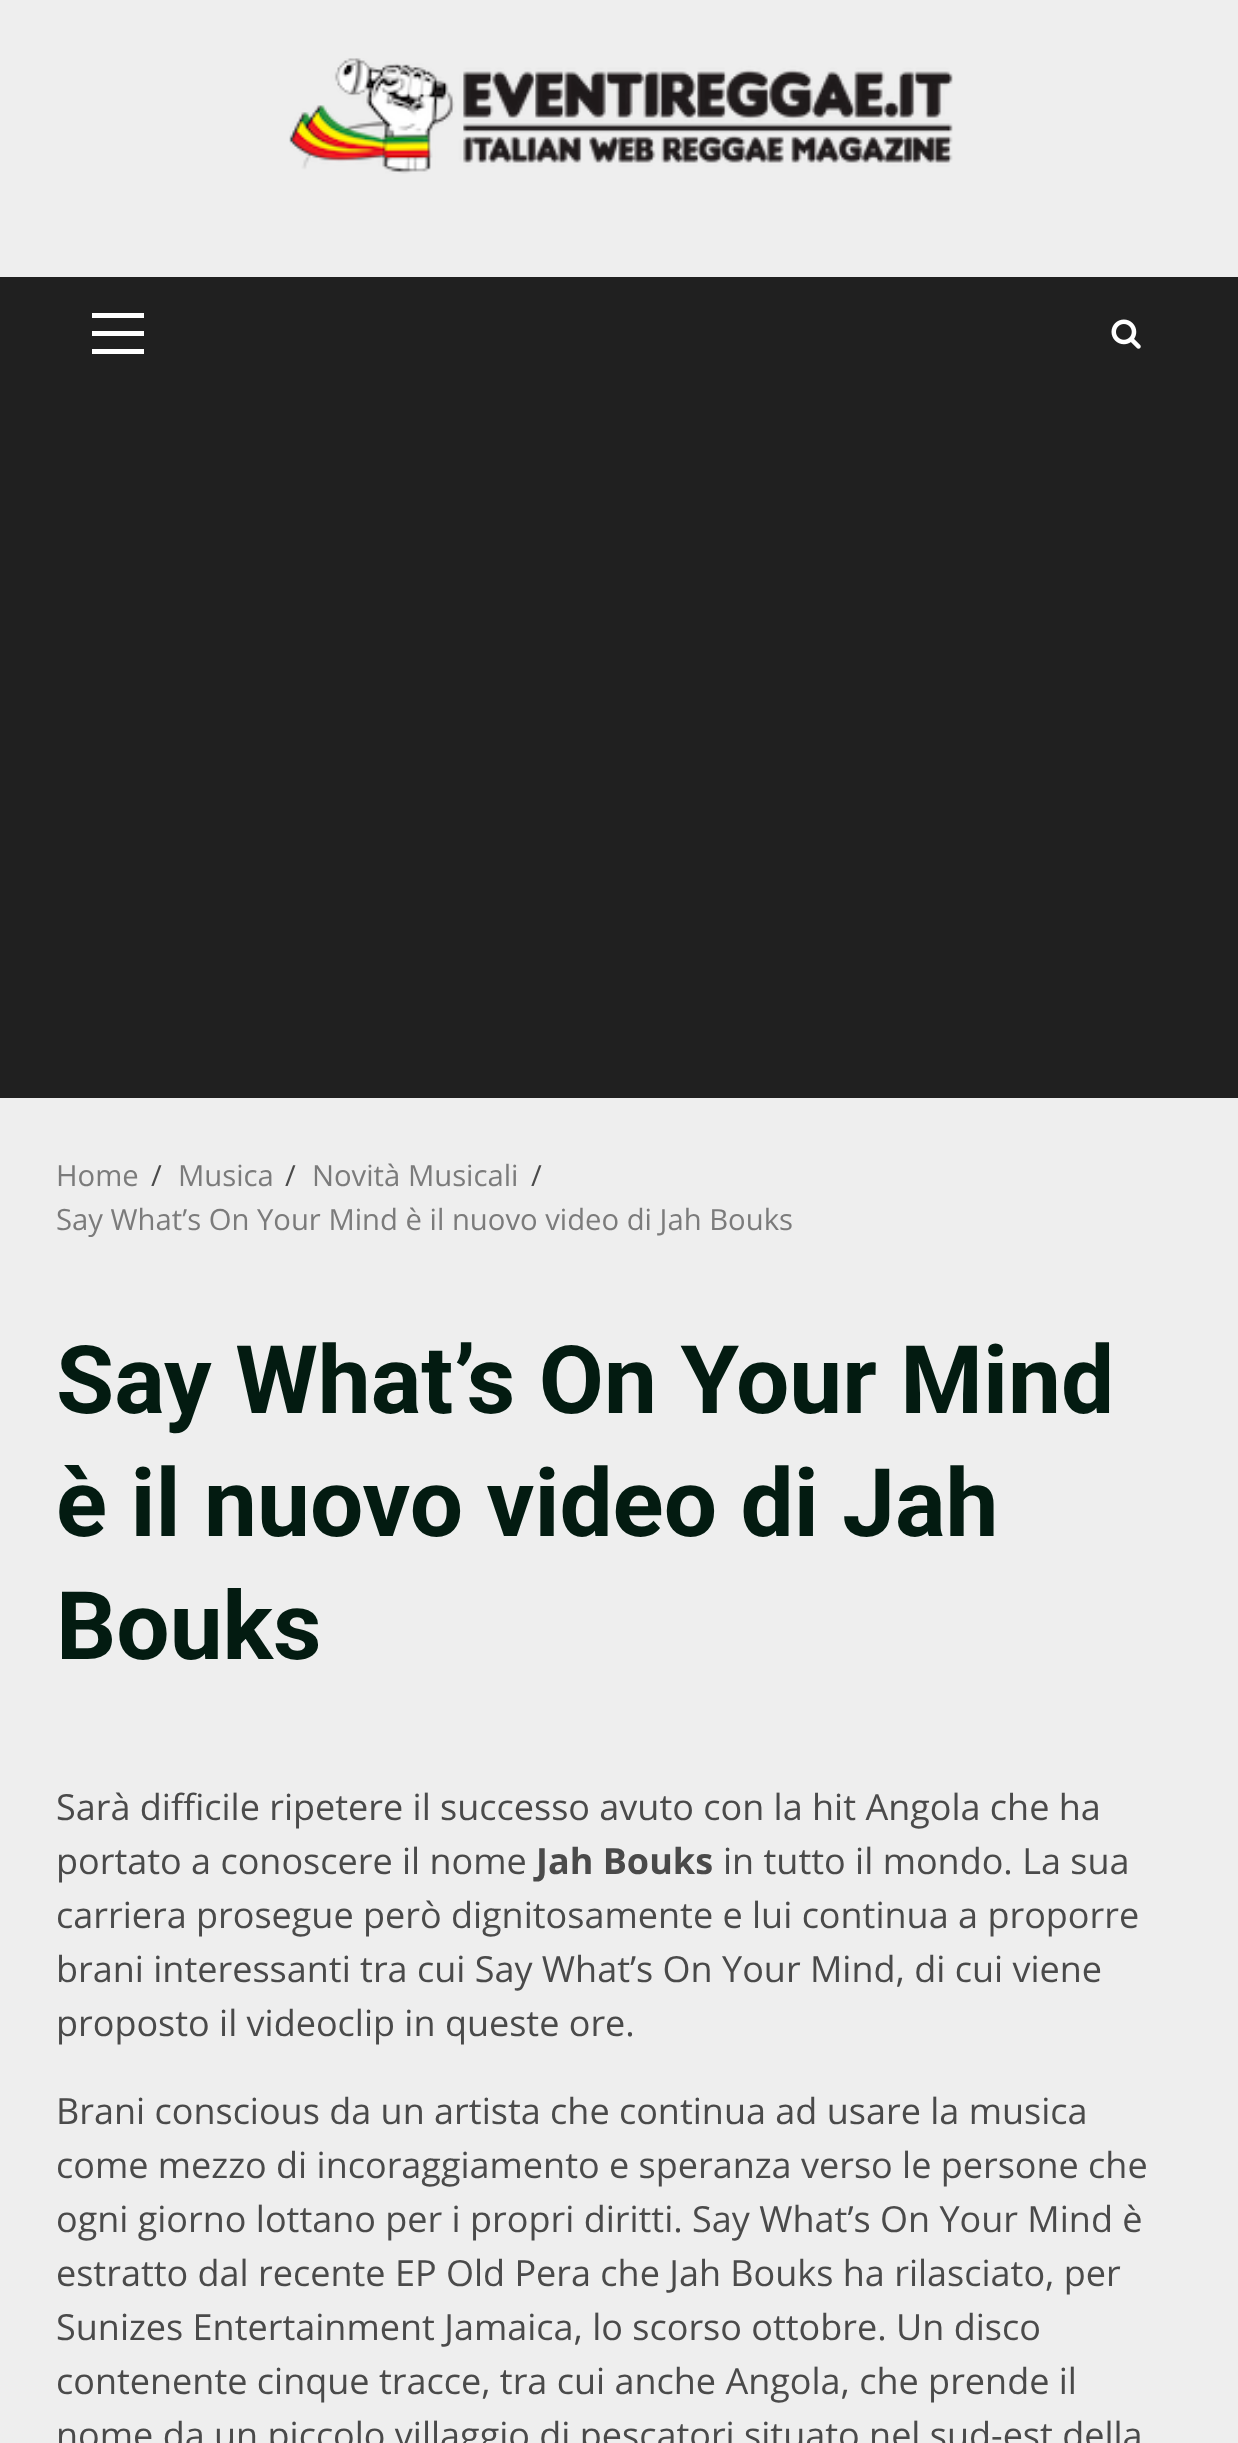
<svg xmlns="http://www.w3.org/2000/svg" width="1238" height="2443">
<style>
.a{font:29.25px Open Sans;fill:#7b7b7b}
.b{font:29.25px Open Sans;fill:#4a4a4a}
.c{font:bold 94.5px Roboto;fill:#031b11}
.d{font:36px Open Sans;fill:#4a4a4a}
.e{font:bold 36px Open Sans;fill:#4a4a4a}
</style>
<rect width="100%" height="100%" fill="#eee"/>
<image href="1.png" x="289" y="58" width="664" height="116"/>
<path fill="#202020" d="M0 277h1238v821H0z"/>
<path fill="#fff" d="M92 331h52v5H92z"/>
<path fill="#fff" d="M92 313h52v5H92z"/>
<path fill="#fff" d="M92 349h52v5H92z"/>
<image href="2.png" x="1111" y="319" width="30" height="30"/>
<text class="a" x="56" y="1186">Home</text>
<text class="b" x="151" y="1186">/</text>
<text class="a" x="178" y="1186">Musica</text>
<text class="b" x="285" y="1186">/</text>
<text class="a" x="312" y="1186">Novità Musicali</text>
<text class="b" x="531" y="1186">/</text>
<text class="a" x="56" y="1230">Say What’s On Your Mind è il nuovo video di Jah Bouks</text>
<text class="c" x="56" y="1413">Say What’s On Your Mind</text>
<text class="c" x="56" y="1536">è il nuovo video di Jah</text>
<text class="c" x="56" y="1659">Bouks</text>
<text class="d" x="56" y="1820">Sarà difficile ripetere il successo avuto con la hit Angola che ha</text>
<text class="d" x="56" y="1874">portato a conoscere il nome</text>
<text class="e" x="536" y="1874">Jah Bouks</text>
<text class="d" x="723" y="1874">in tutto il mondo. La sua</text>
<text class="d" x="56" y="1928">carriera prosegue però dignitosamente e lui continua a proporre</text>
<text class="d" x="56" y="1982">brani interessanti tra cui Say What’s On Your Mind, di cui viene</text>
<text class="d" x="56" y="2036">proposto il videoclip in queste ore.</text>
<text class="d" x="56" y="2124">Brani conscious da un artista che continua ad usare la musica</text>
<text class="d" x="56" y="2178">come mezzo di incoraggiamento e speranza verso le persone che</text>
<text class="d" x="56" y="2232">ogni giorno lottano per i propri diritti. Say What’s On Your Mind è</text>
<text class="d" x="56" y="2286">estratto dal recente EP Old Pera che Jah Bouks ha rilasciato, per</text>
<text class="d" x="56" y="2340">Sunizes Entertainment Jamaica, lo scorso ottobre. Un disco</text>
<text class="d" x="56" y="2394">contenente cinque tracce, tra cui anche Angola, che prende il</text>
<text class="d" x="56" y="2448">nome da un piccolo villaggio di pescatori situato nel sud-est della</text>
</svg>
